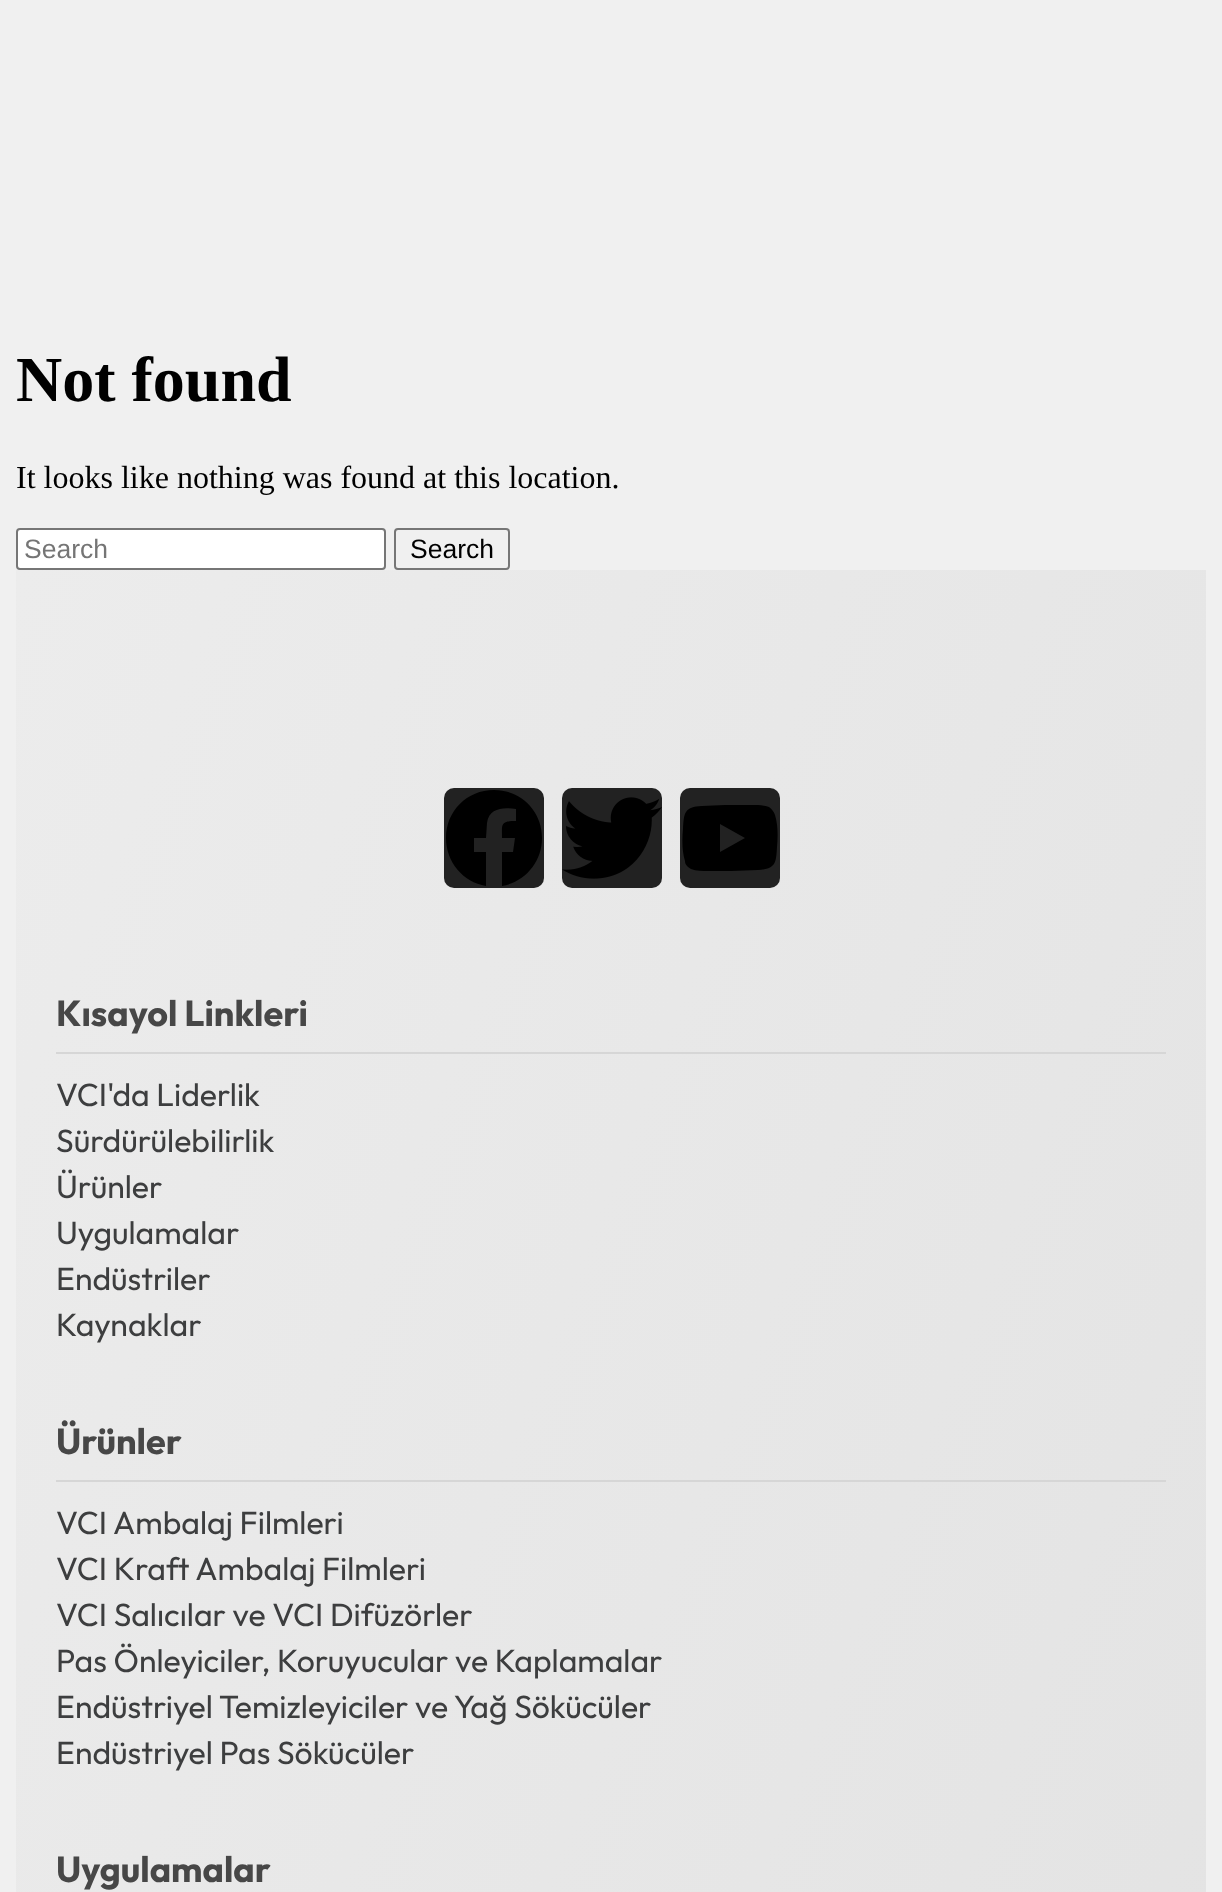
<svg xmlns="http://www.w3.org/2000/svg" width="1222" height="1892">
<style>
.a{font:bold 64px Liberation Serif;fill:#000}
.b{font:32px Liberation Serif;fill:#000}
.c{font:26.5px Liberation Sans;fill:#757575}
.d{font:26.5px Liberation Sans;fill:#000}
.e{font:bold 36px Outfit;fill:#474747}
.f{font:32px Outfit;fill:#3d3e3f}
</style>
<defs>
<linearGradient id="g1" gradientUnits="userSpaceOnUse" x1="-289" y1="1365" x2="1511" y2="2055"><stop offset="0" stop-color="#ececec"/><stop offset="1" stop-color="#e2e2e2"/></linearGradient>
</defs>
<rect width="100%" height="100%" fill="#f0f0f0"/>
<rect fill="#fff" stroke="#767676" stroke-width="2" x="17" y="529" width="368" height="40" rx="3"/>
<rect fill="none" stroke="#767676" stroke-width="2" x="395" y="529" width="114" height="40" rx="3"/>
<path fill="url(#g1)" d="M16 570h1190v1322H16z"/>
<rect fill="#222" x="444" y="788" width="100" height="100" rx="10"/>
<path fill="#000" d="M542 838c0-27-21-48-48-48c-27 0-48 21-48 48c0 24 17 44 40 48v-34h-12v-14h12l1-15c2-15 16-16 29-14v12c-16 0-14 3-14 17h13l-2 14h-11v34c23-4 40-24 40-48z"/>
<rect fill="#222" x="562" y="788" width="100" height="100" rx="10"/>
<image href="1.png" x="562" y="797" width="100" height="82"/>
<rect fill="#222" x="680" y="788" width="100" height="100" rx="10"/>
<path fill="#000" d="M775 815c-1-3-3-6-6-8c-5-2-12-2-17-2h-27l-23 1c-18 1-18 7-19 23c-1 11-1 22 2 32c0 4 3 6 6 8c5 2 12 2 17 2h23l27-1c18-1 18-7 19-23c1-11 1-22-2-32zm-55 37v-28l25 14z"/>
<path fill="#d6d6d6" d="M56 1052h1110v2H56z"/>
<path fill="#d6d6d6" d="M56 1480h1110v2H56z"/>
<text class="a" x="16" y="401">Not found</text>
<text class="b" x="16" y="488">It looks like nothing was found at this location.</text>
<text class="c" x="24" y="558">Search</text>
<text class="d" x="410" y="558">Search</text>
<text class="e" x="56" y="1026">Kısayol Linkleri</text>
<text class="f" x="56" y="1106">VCI'da Liderlik</text>
<text class="f" x="56" y="1152">Sürdürülebilirlik</text>
<text class="f" x="56" y="1198">Ürünler</text>
<text class="f" x="56" y="1244">Uygulamalar</text>
<text class="f" x="56" y="1290">Endüstriler</text>
<text class="f" x="56" y="1336">Kaynaklar</text>
<text class="e" x="56" y="1454">Ürünler</text>
<text class="f" x="56" y="1534">VCI</text>
<text class="f" x="113" y="1534">Ambalaj Filmleri</text>
<text class="f" x="56" y="1580">VCI Kraft Ambalaj Filmleri</text>
<text class="f" x="56" y="1626">VCI Salıcılar ve VCI Difüzörler</text>
<text class="f" x="56" y="1672">Pas Önleyiciler, Koruyucular ve Kaplamalar</text>
<text class="f" x="56" y="1718">Endüstriyel Temizleyiciler ve Yağ Sökücüler</text>
<text class="f" x="56" y="1764">Endüstriyel Pas Sökücüler</text>
<text class="e" x="56" y="1882">Uygulamalar</text>
</svg>
